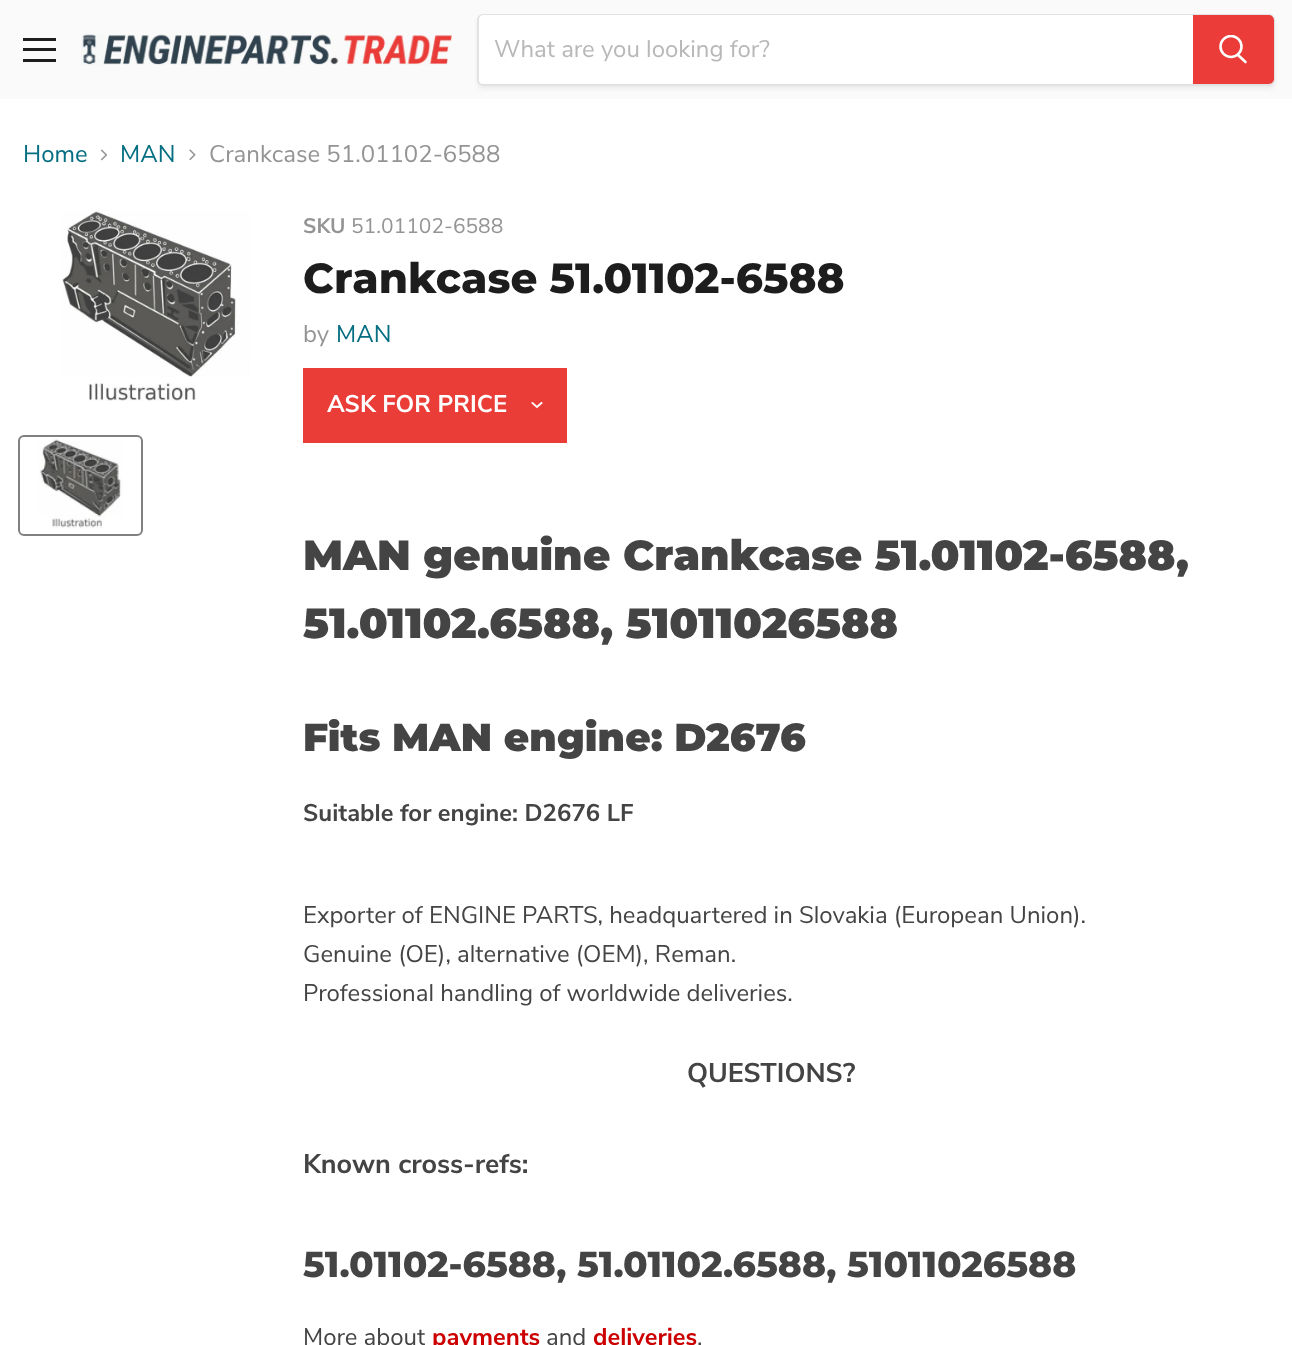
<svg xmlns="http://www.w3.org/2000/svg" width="1292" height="1345">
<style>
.a{font:24px Nunito Sans;fill:#b8b8b8}
.b{font:24px Nunito Sans;fill:#046e82}
.c{font:24px Nunito Sans;fill:#949494}
.d{font:bold 21px Nunito Sans;fill:#949494}
.e{font:21px Nunito Sans;fill:#949494}
.f{font:800 42px Montserrat;fill:#1d1d1d}
.g{font:bold 24px Nunito Sans;fill:#fff}
.h{font:900 42px Montserrat;fill:#444}
.i{font:900 39px Montserrat;fill:#444}
.j{font:bold 24px Nunito Sans;fill:#444}
.k{font:24px Nunito Sans;fill:#444}
.l{font:bold 27px Nunito Sans;fill:#444}
.m{font:800 36px Montserrat;fill:#444}
.n{font:bold 24px Nunito Sans;fill:#c00}
</style>
<defs>
<clipPath id="clip1"><path d="M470 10h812v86h-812zm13 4h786c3.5 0 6 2.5 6 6v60c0 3.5-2.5 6-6 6h-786c-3.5 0-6-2.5-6-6v-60c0-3.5 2.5-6 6-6z" clip-rule="evenodd"/></clipPath>
<clipPath id="clip2"><path d="M1218 35h30v31H1218z"/></clipPath>
</defs>
<rect width="100%" height="100%" fill="#fff"/>
<path fill="#fafafa" d="M0 0h1292v99H0z"/>
<path fill="#1d1d1d" d="M23 38h33v3H23z"/>
<path fill="#1d1d1d" d="M23 48h33v3H23z"/>
<path fill="#1d1d1d" d="M23 59h33v3H23z"/>
<image href="1.png" x="81" y="33" width="372" height="33"/>
<g clip-path="url(#clip1)">
<rect fill="#8080801c" filter="blur(2px)" x="477" y="17" width="798" height="72" rx="6"/>
</g>
<rect fill="none" stroke="#80808033" stroke-width="2" x="478" y="15" width="796" height="70" rx="5"/>
<path fill="#fff" d="M484 15h709v69h-709c-3 0-5-2-5-5v-59c0-3 2-5 5-5z"/>
<path fill="#eb3c39" stroke="#eb3c39" stroke-width="2" d="M1194 16h75c2 0 4 2 4 4v59c0 2-2 4-4 4h-75z"/>
<path fill="none" stroke="#fff" stroke-width="2.6" stroke-linecap="round" d="M1245.5 62l-7.5-7"/>
<g clip-path="url(#clip2)">
<circle fill="none" stroke="#fff" stroke-width="2.6" cx="1231" cy="46.5" r="10.5"/>
</g>
<image href="2.png" x="100" y="149" width="7" height="12"/>
<image href="3.png" x="189" y="149" width="7" height="12"/>
<image href="4.png" x="62" y="210" width="188" height="191"/>
<rect fill="none" stroke="#818181" stroke-width="2" x="19" y="436" width="123" height="99" rx="5"/>
<image href="5.png" x="38" y="439" width="85" height="90"/>
<path fill="#ea3d38" d="M303 368h264v75H303z"/>
<path fill="none" stroke="#fff" stroke-width="1.9" stroke-linecap="square" d="M537 407l4.5-4m-4.5 4l-4.5-4"/>
<text class="a" x="494" y="57">What are you looking for?</text>
<text class="b" x="23" y="162">Home</text>
<text class="b" x="120" y="162">MAN</text>
<text class="c" x="209" y="162">Crankcase 51.01102-6588</text>
<text class="d" x="303" y="233">SKU</text>
<text class="e" x="351" y="233">51.01102-6588</text>
<text class="f" x="303" y="293">Crankcase 51.01102-6588</text>
<text class="c" x="303" y="342">by</text>
<text class="b" x="336" y="342">MAN</text>
<text class="g" x="327" y="412">ASK FOR PRICE</text>
<text class="h" x="303" y="570">MAN genuine Crankcase 51.01102-6588,</text>
<text class="h" x="303" y="638">51.01102.6588, 51011026588</text>
<text class="i" x="303" y="751">Fits MAN engine: D2676</text>
<text class="j" x="303" y="821">Suitable for engine: D2676 LF</text>
<text class="k" x="303" y="923">Exporter of ENGINE PARTS, headquartered in Slovakia (European Union).</text>
<text class="k" x="303" y="962">Genuine (OE), alternative (OEM), Reman.</text>
<text class="k" x="303" y="1001">Professional handling of worldwide deliveries.</text>
<text class="l" x="687" y="1082">QUESTIONS?</text>
<text class="l" x="303" y="1173">Known cross-refs:</text>
<text class="m" x="303" y="1277">51.01102-6588, 51.01102.6588, 51011026588</text>
<text class="k" x="303" y="1345">More about</text>
<text class="n" x="432" y="1345">payments</text>
<text class="k" x="546" y="1345">and</text>
<text class="n" x="593" y="1345">deliveries</text>
<text class="k" x="697" y="1345">.</text>
</svg>
